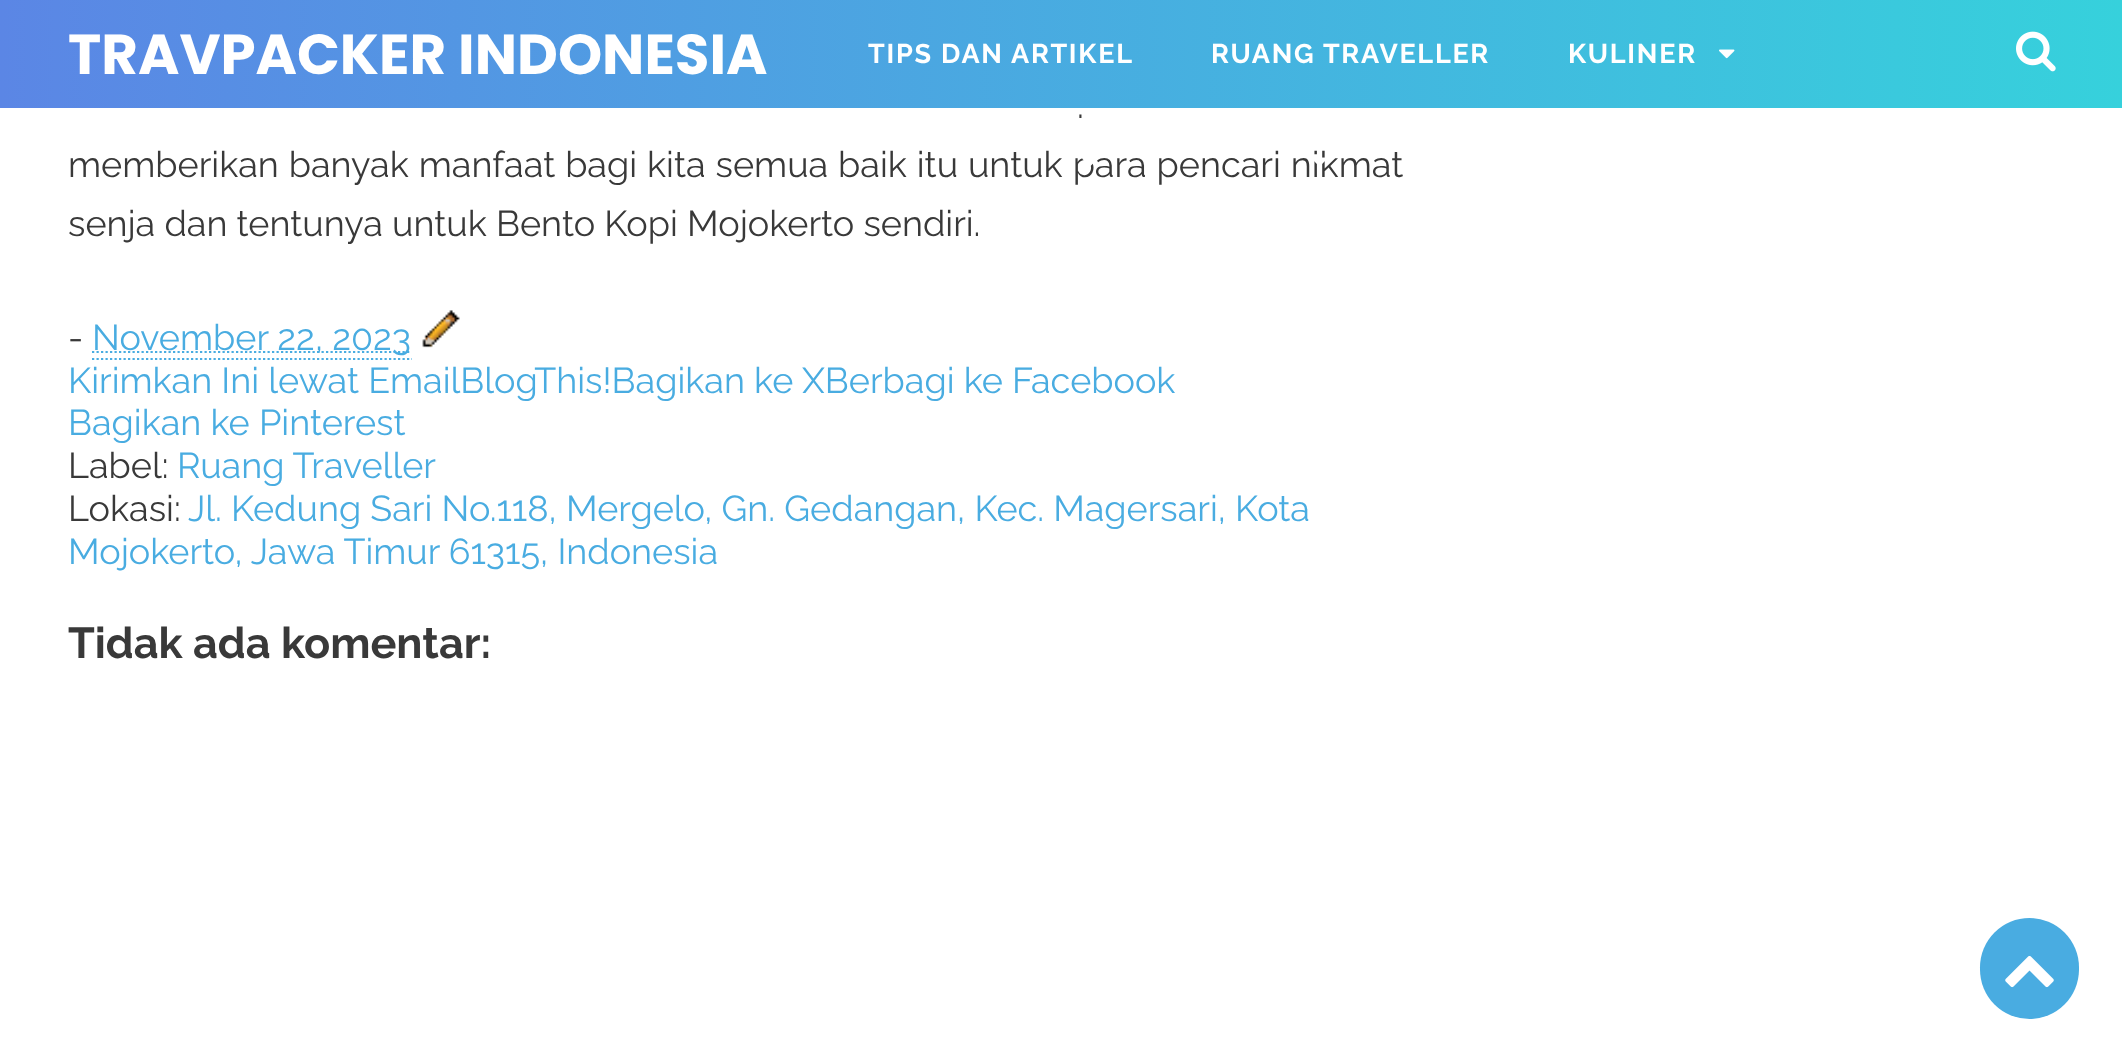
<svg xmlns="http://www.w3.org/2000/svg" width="2122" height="1056">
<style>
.a{font:bold 56.25px Poppins;fill:#fff}
.b{font:bold 27px Raleway;letter-spacing:1.75px;fill:#fff}
.c{font:36px Raleway;fill:#393939}
.d{font:36px Raleway;fill:#49ace1}
.e{font:bold 43.25px Raleway;fill:#393939}
</style>
<defs>
<linearGradient id="g1" gradientUnits="userSpaceOnUse" x1="0" y1="54" x2="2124" y2="54"><stop offset="0" stop-color="#5b86e5"/><stop offset="1" stop-color="#36d1dc"/></linearGradient>
</defs>
<rect width="100%" height="100%" fill="#fff"/>
<path fill="url(#g1)" d="M0 0h2122v108H0z"/>
<image href="1.png" x="1719" y="49" width="16" height="10"/>
<image href="4.png" x="2016" y="31" width="40" height="41"/>
<path fill="none" stroke="#49ace1" stroke-width="2.2" stroke-dasharray="2.25 2.25" d="M92 359h320"/>
<path fill="none" stroke="#49ace1" stroke-width="2.2" stroke-dasharray="2.25 2.25" d="M92 352h319"/>
<image href="5.png" x="422" y="310" width="38" height="38"/>
<rect fill="#49ace1" x="1980" y="918" width="99" height="101" rx="49.5"/>
<image href="6.png" x="2005" y="955" width="49" height="33"/>
<text class="a" x="68" y="74">TRAVPACKER INDONESIA</text>
<text class="b" x="868" y="63">TIPS DAN ARTIKEL</text>
<text class="b" x="1211" y="63">RUANG TRAVELLER</text>
<text class="b" x="1568" y="63">KULINER</text>
<text class="c" x="1077" y="118" word-spacing="3">.</text>
<text class="c" x="68" y="177" word-spacing="0.75">memberikan banyak manfaat bagi kita semua baik itu untuk para pencari nikmat</text>
<image href="3.png" x="1314" y="157" width="11" height="8"/>
<image href="2.png" x="1082" y="158" width="11" height="8"/>
<text class="c" x="68" y="236">senja dan tentunya untuk Bento Kopi Mojokerto sendiri.</text>
<text class="c" x="68" y="350">-</text>
<text class="d" x="92" y="350">November 22, 2023</text>
<text class="d" x="68" y="393">Kirimkan Ini lewat EmailBlogThis!Bagikan ke XBerbagi ke Facebook</text>
<text class="d" x="68" y="435">Bagikan ke Pinterest</text>
<text class="c" x="68" y="478">Label:</text>
<text class="d" x="177" y="478">Ruang Traveller</text>
<text class="c" x="68" y="521">Lokasi:</text>
<text class="d" x="188" y="521">Jl. Kedung Sari No.118, Mergelo, Gn. Gedangan, Kec. Magersari, Kota</text>
<text class="d" x="68" y="564">Mojokerto, Jawa Timur 61315, Indonesia</text>
<text class="e" x="68" y="658">Tidak ada komentar:</text>
</svg>
